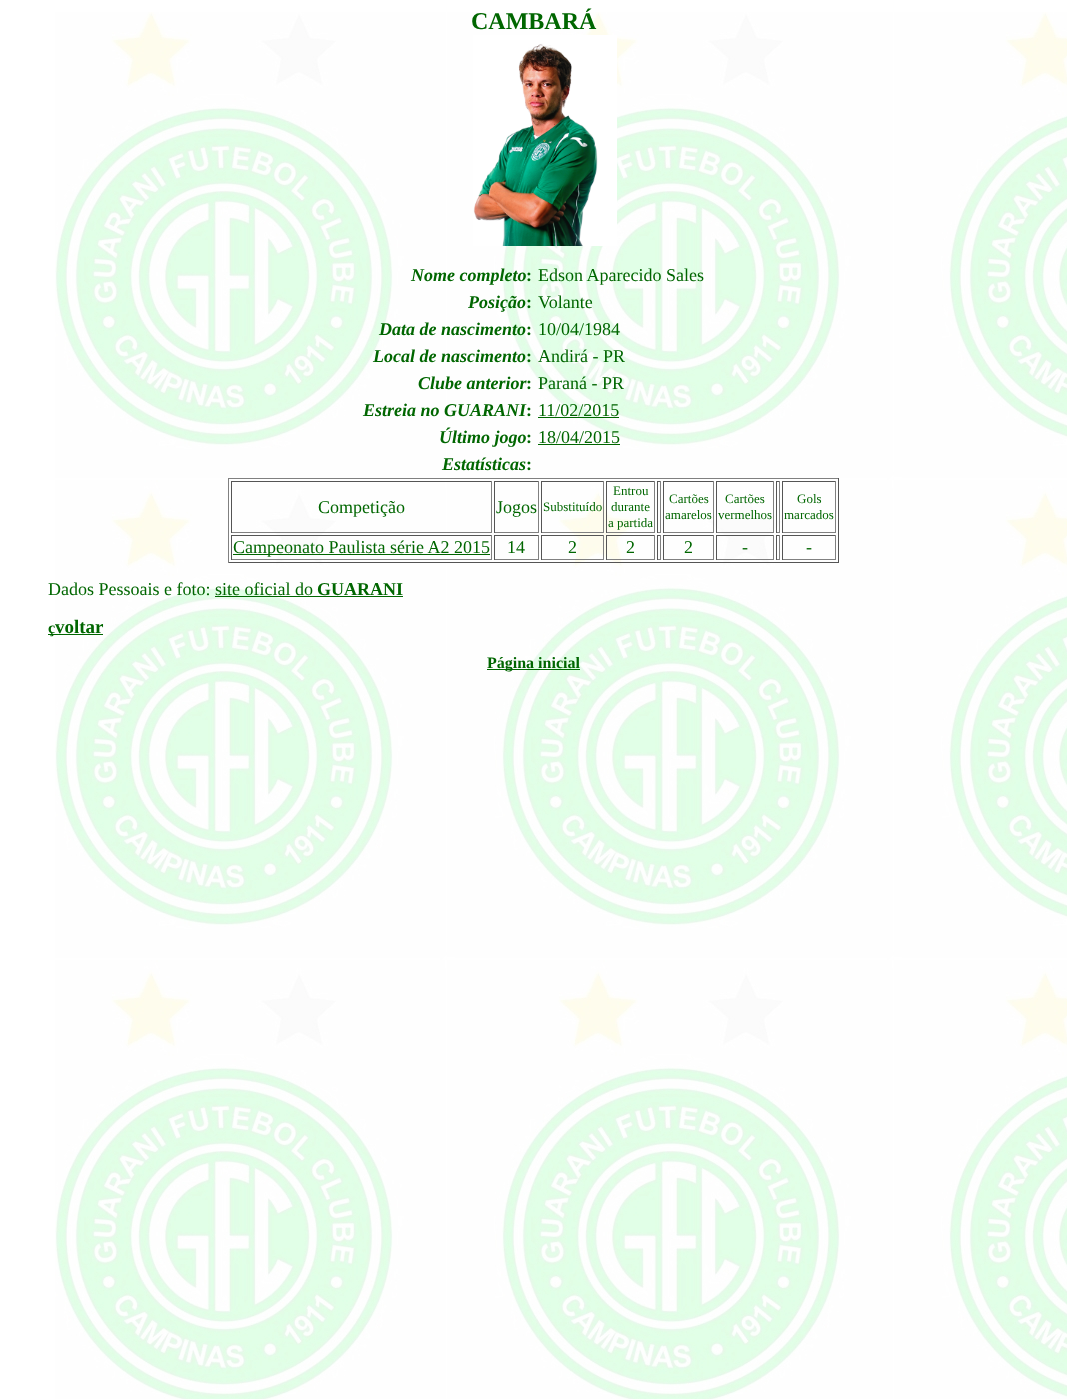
<svg xmlns="http://www.w3.org/2000/svg" width="1067" height="1399">
<style>
.a{font:bold 24px Liberation Serif;fill:#060}
.b{font:italic bold 18px Liberation Serif;fill:#060}
.c{font:bold 18px Liberation Serif;fill:#060}
.d{font:18px Liberation Serif;fill:#060}
.e{font:13px Liberation Serif;fill:#060}
.f{font:bold 16px Liberation Serif;fill:#060}
.g{font:bold 19px Liberation Serif;fill:#060}
</style>
<rect width="100%" height="100%" fill="#fff"/>
<image href="1.png" x="55" y="12" width="1012" height="1387"/>
<image href="2.png" x="473" y="35" width="144" height="211"/>
<path fill="#060" d="M538 417h81v1H538z"/>
<path fill="#060" d="M538 444h82v1H538z"/>
<path fill="#808080" d="M228 478h611v1H228z"/>
<path fill="#555" d="M838 478h1v85H838z"/>
<path fill="#555" d="M228 562h611v1H228z"/>
<path fill="#808080" d="M228 478h1v85H228z"/>
<path fill="#555" d="M231 481h261v1H231z"/>
<path fill="#808080" d="M491 481h1v52H491z"/>
<path fill="#808080" d="M231 532h261v1H231z"/>
<path fill="#555" d="M231 481h1v52H231z"/>
<path fill="#555" d="M494 481h45v1H494z"/>
<path fill="#808080" d="M538 481h1v52H538z"/>
<path fill="#808080" d="M494 532h45v1H494z"/>
<path fill="#555" d="M494 481h1v52H494z"/>
<path fill="#555" d="M541 481h63v1H541z"/>
<path fill="#808080" d="M603 481h1v52H603z"/>
<path fill="#808080" d="M541 532h63v1H541z"/>
<path fill="#555" d="M541 481h1v52H541z"/>
<path fill="#555" d="M606 481h49v1H606z"/>
<path fill="#808080" d="M654 481h1v52H654z"/>
<path fill="#808080" d="M606 532h49v1H606z"/>
<path fill="#555" d="M606 481h1v52H606z"/>
<path fill="#555" d="M657 481h4v1H657z"/>
<path fill="#808080" d="M660 481h1v52H660z"/>
<path fill="#808080" d="M657 532h4v1H657z"/>
<path fill="#555" d="M657 481h1v52H657z"/>
<path fill="#555" d="M663 481h51v1H663z"/>
<path fill="#808080" d="M713 481h1v52H713z"/>
<path fill="#808080" d="M663 532h51v1H663z"/>
<path fill="#555" d="M663 481h1v52H663z"/>
<path fill="#555" d="M716 481h58v1H716z"/>
<path fill="#808080" d="M773 481h1v52H773z"/>
<path fill="#808080" d="M716 532h58v1H716z"/>
<path fill="#555" d="M716 481h1v52H716z"/>
<path fill="#555" d="M776 481h4v1H776z"/>
<path fill="#808080" d="M779 481h1v52H779z"/>
<path fill="#808080" d="M776 532h4v1H776z"/>
<path fill="#555" d="M776 481h1v52H776z"/>
<path fill="#555" d="M782 481h54v1H782z"/>
<path fill="#808080" d="M835 481h1v52H835z"/>
<path fill="#808080" d="M782 532h54v1H782z"/>
<path fill="#555" d="M782 481h1v52H782z"/>
<path fill="#555" d="M231 535h261v1H231z"/>
<path fill="#808080" d="M491 535h1v25H491z"/>
<path fill="#808080" d="M231 559h261v1H231z"/>
<path fill="#555" d="M231 535h1v25H231z"/>
<path fill="#060" d="M233 554h257v1H233z"/>
<path fill="#555" d="M494 535h45v1H494z"/>
<path fill="#808080" d="M538 535h1v25H538z"/>
<path fill="#808080" d="M494 559h45v1H494z"/>
<path fill="#555" d="M494 535h1v25H494z"/>
<path fill="#555" d="M541 535h63v1H541z"/>
<path fill="#808080" d="M603 535h1v25H603z"/>
<path fill="#808080" d="M541 559h63v1H541z"/>
<path fill="#555" d="M541 535h1v25H541z"/>
<path fill="#555" d="M606 535h49v1H606z"/>
<path fill="#808080" d="M654 535h1v25H654z"/>
<path fill="#808080" d="M606 559h49v1H606z"/>
<path fill="#555" d="M606 535h1v25H606z"/>
<path fill="#555" d="M657 535h4v1H657z"/>
<path fill="#808080" d="M660 535h1v25H660z"/>
<path fill="#808080" d="M657 559h4v1H657z"/>
<path fill="#555" d="M657 535h1v25H657z"/>
<path fill="#555" d="M663 535h51v1H663z"/>
<path fill="#808080" d="M713 535h1v25H713z"/>
<path fill="#808080" d="M663 559h51v1H663z"/>
<path fill="#555" d="M663 535h1v25H663z"/>
<path fill="#555" d="M716 535h58v1H716z"/>
<path fill="#808080" d="M773 535h1v25H773z"/>
<path fill="#808080" d="M716 559h58v1H716z"/>
<path fill="#555" d="M716 535h1v25H716z"/>
<path fill="#555" d="M776 535h4v1H776z"/>
<path fill="#808080" d="M779 535h1v25H779z"/>
<path fill="#808080" d="M776 559h4v1H776z"/>
<path fill="#555" d="M776 535h1v25H776z"/>
<path fill="#555" d="M782 535h54v1H782z"/>
<path fill="#808080" d="M835 535h1v25H835z"/>
<path fill="#808080" d="M782 559h54v1H782z"/>
<path fill="#555" d="M782 535h1v25H782z"/>
<path fill="#060" d="M215 596h188v1H215z"/>
<path fill="#060" d="M48 634h55v1H48z"/>
<path fill="#060" d="M487 669h93v1H487z"/>
<text class="a" x="471" y="29">CAMBARÁ</text>
<text class="b" x="411" y="281">Nome completo</text>
<text class="c" x="526" y="281">:</text>
<text class="d" x="538" y="281">Edson Aparecido Sales</text>
<text class="b" x="468" y="308">Posição</text>
<text class="c" x="526" y="308">:</text>
<text class="d" x="538" y="308">Volante</text>
<text class="b" x="379" y="335">Data de nascimento</text>
<text class="c" x="526" y="335">:</text>
<text class="d" x="538" y="335">10/04/1984</text>
<text class="b" x="373" y="362">Local de nascimento</text>
<text class="c" x="526" y="362">:</text>
<text class="d" x="538" y="362">Andirá - PR</text>
<text class="b" x="418" y="389">Clube anterior</text>
<text class="c" x="526" y="389">:</text>
<text class="d" x="538" y="389">Paraná - PR</text>
<text class="b" x="363" y="416">Estreia no GUARANI</text>
<text class="c" x="526" y="416">:</text>
<text class="d" x="538" y="416">11/02/2015</text>
<text class="b" x="439" y="443">Último jogo</text>
<text class="c" x="526" y="443">:</text>
<text class="d" x="538" y="443">18/04/2015</text>
<text class="b" x="442" y="470">Estatísticas</text>
<text class="c" x="526" y="470">:</text>
<text class="d" x="318" y="513">Competição</text>
<text class="d" x="496" y="513">Jogos</text>
<text class="e" x="543" y="511">Substituído</text>
<text class="e" x="613" y="495">Entrou</text>
<text class="e" x="611" y="511">durante</text>
<text class="e" x="608" y="527">a partida</text>
<text class="e" x="669" y="503">Cartões</text>
<text class="e" x="665" y="519">amarelos</text>
<text class="e" x="725" y="503">Cartões</text>
<text class="e" x="718" y="519">vermelhos</text>
<text class="e" x="797" y="503">Gols</text>
<text class="e" x="784" y="519">marcados</text>
<text class="d" x="233" y="553">Campeonato Paulista série A2 2015</text>
<text class="d" x="507" y="553">14</text>
<text class="d" x="568" y="553">2</text>
<text class="d" x="626" y="553">2</text>
<text class="d" x="684" y="553">2</text>
<text class="d" x="742" y="553">-</text>
<text class="d" x="806" y="553">-</text>
<text class="d" x="48" y="595">Dados Pessoais e foto: site oficial do</text>
<text class="c" x="317" y="595">GUARANI</text>
<text class="f" x="48" y="633">ç</text>
<text class="g" x="55" y="633">voltar</text>
<text class="f" x="487" y="668">Página inicial</text>
</svg>
